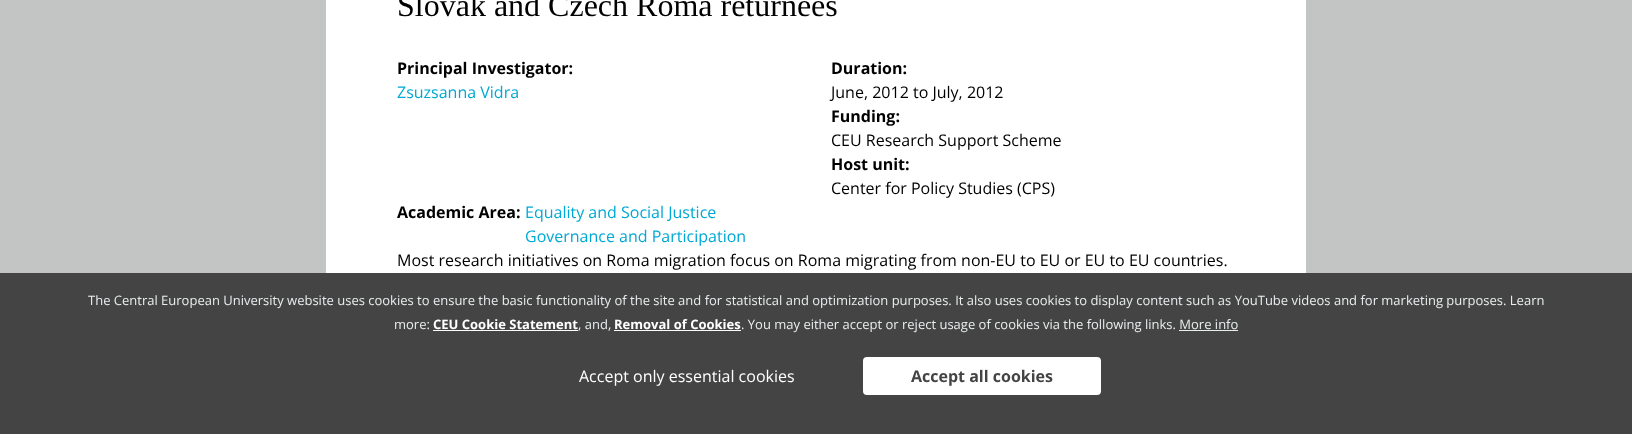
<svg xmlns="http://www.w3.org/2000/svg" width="1632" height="434">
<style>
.a{font:32px Liberation Serif;fill:#000}
.b{font:bold 16px Open Sans;fill:#000}
.c{font:16px Open Sans;fill:#00a9d5}
.d{font:16px Open Sans;fill:#000}
.e{font:13px Open Sans;fill:#e8edee}
.f{font:bold 13px Open Sans;fill:#fff}
.g{font:16px Open Sans;fill:#fff}
.h{font:bold 16px Open Sans;fill:#444}
</style>
<rect width="100%" height="100%" fill="#c3c4c4"/>
<path fill="#fff" d="M326 0h980v273H326z"/>
<path fill="#444" d="M0 273h1632v161H0z"/>
<path fill="#fff" d="M433 330h145v1H433z"/>
<path fill="#fff" d="M614 330h127v1H614z"/>
<path fill="#e8edee" d="M1179 330h59v1H1179z"/>
<rect fill="#fff" x="863" y="357" width="238" height="38" rx="4"/>
<text class="a" x="397" y="16">Slovak and Czech Roma returnees</text>
<text class="b" x="397" y="74">Principal Investigator:</text>
<text class="c" x="397" y="98">Zsuzsanna Vidra</text>
<text class="b" x="831" y="74">Duration:</text>
<text class="d" x="831" y="98">June, 2012 to July, 2012</text>
<text class="b" x="831" y="122">Funding:</text>
<text class="d" x="831" y="146">CEU Research Support Scheme</text>
<text class="b" x="831" y="170">Host unit:</text>
<text class="d" x="831" y="194">Center for Policy Studies (CPS)</text>
<text class="b" x="397" y="218">Academic Area:</text>
<text class="c" x="525" y="218">Equality and Social Justice</text>
<text class="c" x="525" y="242">Governance and Participation</text>
<text class="d" x="397" y="266">Most research initiatives on Roma migration focus on Roma migrating from non-EU to EU or EU to EU countries.</text>
<text class="e" x="88" y="305">The Central European University website uses cookies to ensure the basic functionality of the site and for statistical and optimization purposes. It also uses cookies to display content such as YouTube videos and for marketing purposes. Learn</text>
<text class="e" x="394" y="329">more:</text>
<text class="f" x="433" y="329">CEU Cookie Statement</text>
<text class="e" x="578" y="329">, and,</text>
<text class="f" x="614" y="329">Removal of Cookies</text>
<text class="e" x="741" y="329">. You may either accept or reject usage of cookies via the following links. More info</text>
<text class="g" x="579" y="382">Accept only essential cookies</text>
<text class="h" x="911" y="382">Accept all cookies</text>
</svg>
